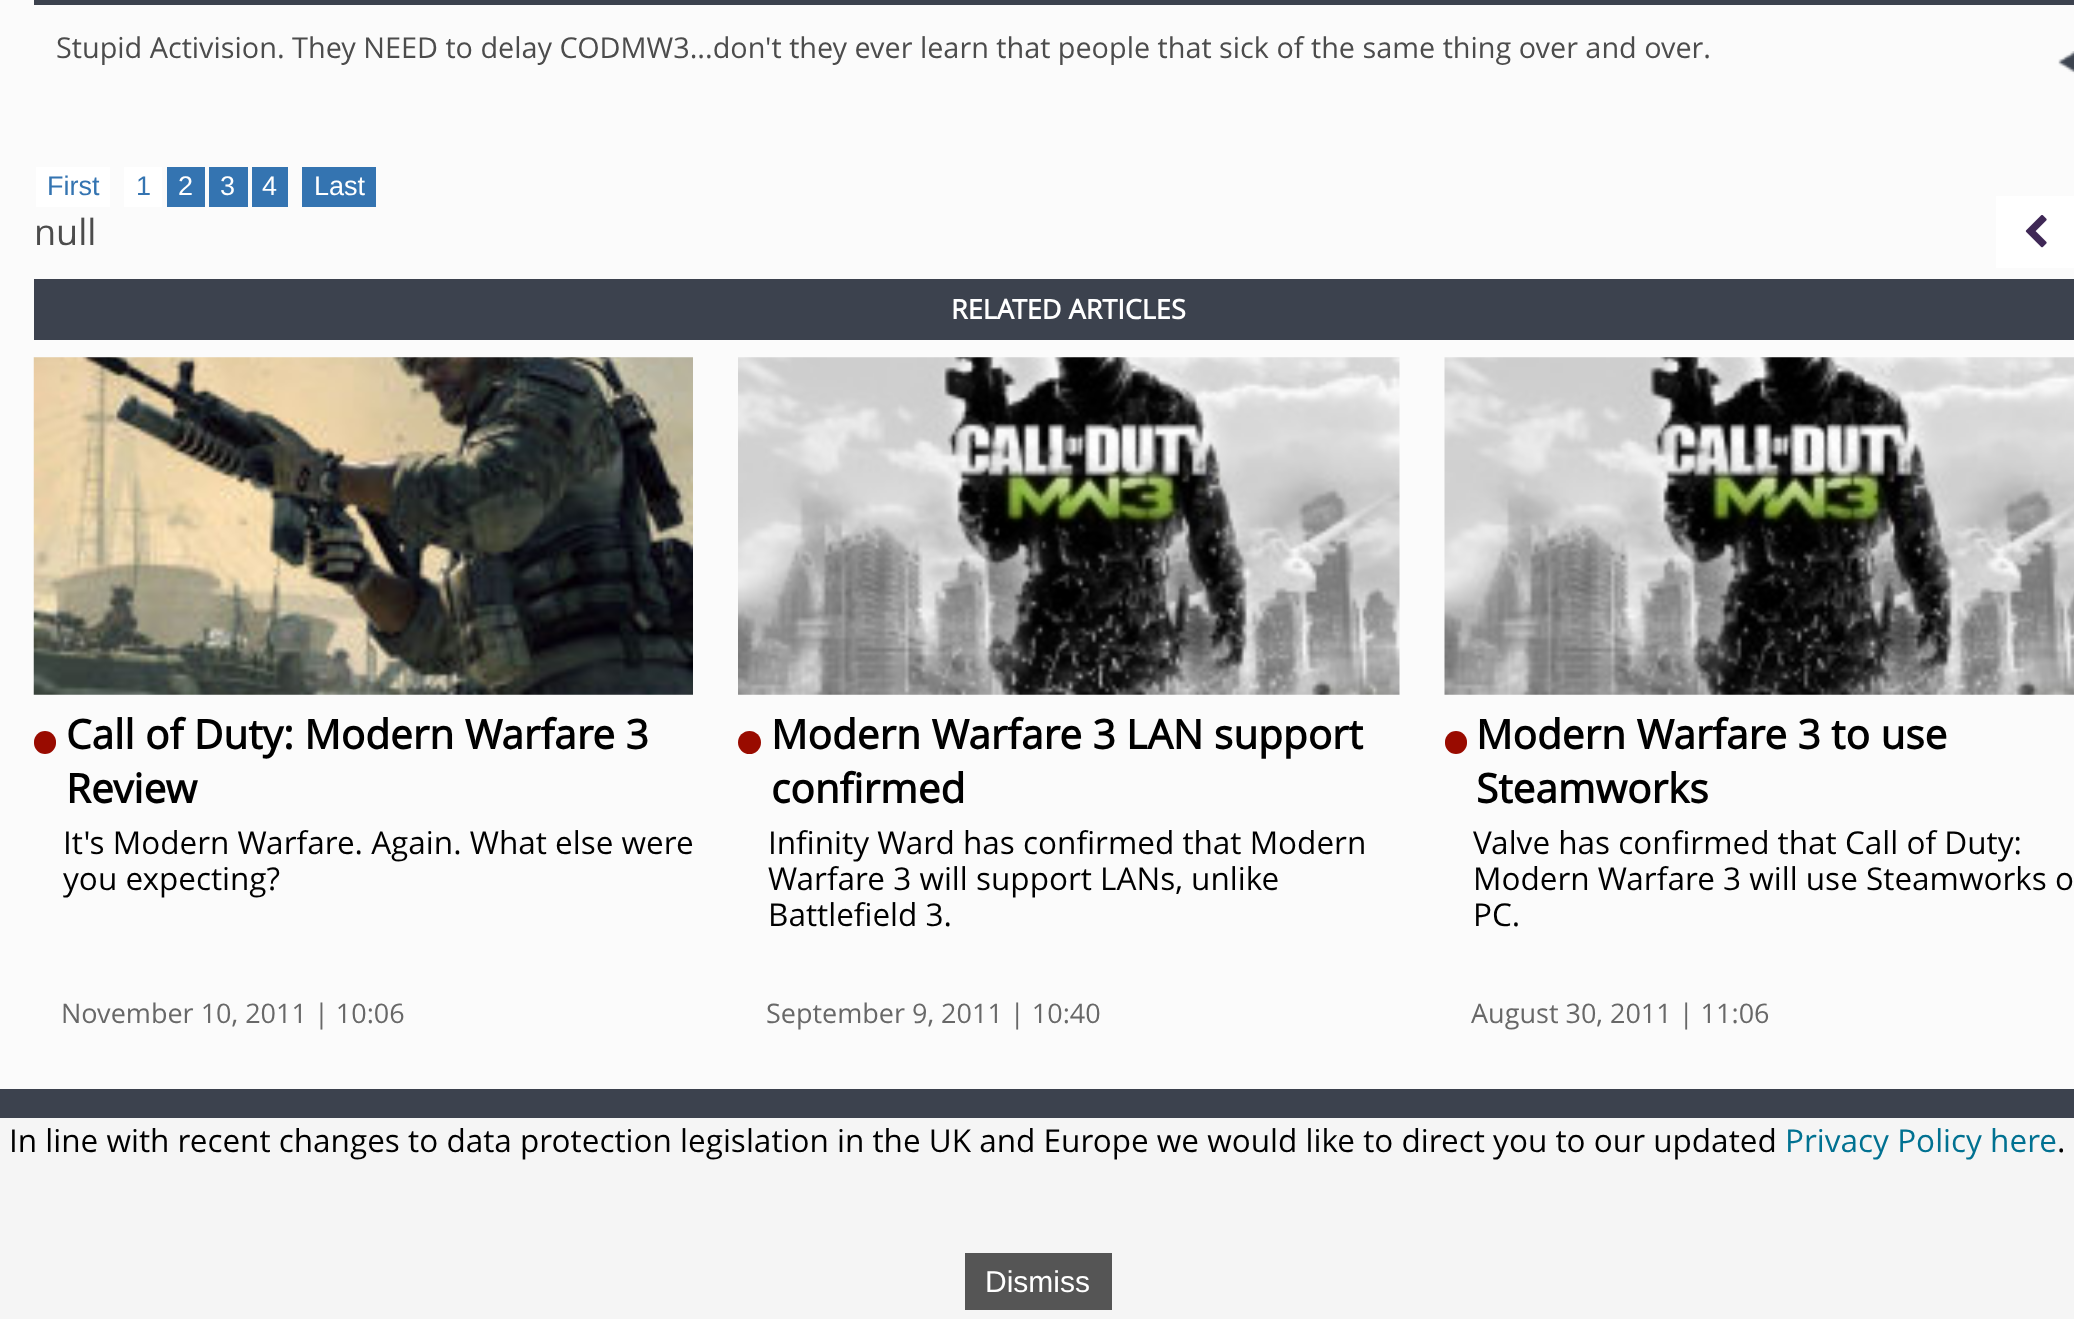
<svg xmlns="http://www.w3.org/2000/svg" width="2074" height="1319">
<style>
.a{font:28.8px Open Sans;fill:#4c4c4c}
.b{font:27px Liberation Sans;fill:#3474b1}
.c{font:27px Liberation Sans;fill:#fff}
.d{font:36px Open Sans;fill:#4c4c4c}
.e{font:bold 27px Open Sans;fill:#fff}
.f{font:bold 40.5px Open Sans;fill:#000}
.g{font:31.5px Open Sans;fill:#000}
.h{font:27px Open Sans;fill:#686868}
.i{font:31.5px Open Sans;fill:#007191}
.j{font:30px Liberation Sans;fill:#fff}
</style>
<rect width="100%" height="100%" fill="#fbfbfb"/>
<path fill="#3c424e" d="M34 0h2040v5H34z"/>
<image href="1.png" x="2058" y="51" width="16" height="23"/>
<path fill="#fff" d="M36 167h74v40H36z"/>
<path fill="#fff" d="M124 167h38v40H124z"/>
<path fill="#3474b1" d="M167 167h38v40H167z"/>
<path fill="#3474b1" d="M209 167h39v40H209z"/>
<path fill="#3474b1" d="M252 167h36v40H252z"/>
<path fill="#3474b1" d="M302 167h74v40H302z"/>
<path fill="#3c424e" d="M34 279h2040v61H34z"/>
<image href="2.png" x="33" y="357" width="660" height="338"/>
<rect fill="#990b00" x="34" y="731" width="22" height="23" rx="11"/>
<image href="3.png" x="738" y="357" width="662" height="338"/>
<circle fill="#990b00" cx="749.5" cy="742.5" r="11.5"/>
<image href="4.png" x="1444" y="357" width="630" height="338"/>
<rect fill="#990b00" x="1445" y="731" width="22" height="23" rx="11"/>
<path fill="#3c424e" d="M0 1089h2074v29H0z"/>
<path fill="#fff" d="M1996 196h78v72H1996z"/>
<image href="5.png" x="2025" y="215" width="22" height="33"/>
<path fill="#f5f5f5" d="M0 1118h2074v201H0z"/>
<path fill="#555" d="M965 1253h147v57H965z"/>
<text class="a" x="56" y="58">Stupid Activision. They NEED to delay CODMW3...don't they ever learn that people that sick of the same thing over and over.</text>
<text class="b" x="47" y="195">First</text>
<text class="b" x="136" y="195">1</text>
<text class="c" x="178" y="195">2</text>
<text class="c" x="220" y="195">3</text>
<text class="c" x="262" y="195">4</text>
<text class="c" x="314" y="195">Last</text>
<text class="d" x="34" y="245">null</text>
<text class="e" x="951" y="319">RELATED ARTICLES</text>
<text class="f" x="66" y="749">Call of Duty: Modern Warfare 3</text>
<text class="f" x="66" y="803">Review</text>
<text class="g" x="63" y="854">It's Modern Warfare. Again. What else were</text>
<text class="g" x="63" y="890">you expecting?</text>
<text class="h" x="61" y="1023">November 10, 2011 | 10:06</text>
<text class="f" x="771" y="749">Modern Warfare 3 LAN support</text>
<text class="f" x="771" y="803">confirmed</text>
<text class="g" x="768" y="854">Infinity Ward has confirmed that Modern</text>
<text class="g" x="768" y="890">Warfare 3 will support LANs, unlike</text>
<text class="g" x="768" y="926">Battlefield 3.</text>
<text class="h" x="766" y="1023">September 9, 2011 | 10:40</text>
<text class="f" x="1476" y="749">Modern Warfare 3 to use</text>
<text class="f" x="1476" y="803">Steamworks</text>
<text class="g" x="1473" y="854">Valve has confirmed that Call of Duty:</text>
<text class="g" x="1473" y="890">Modern Warfare 3 will use Steamworks o</text>
<text class="g" x="1473" y="926">PC.</text>
<text class="h" x="1471" y="1023">August 30, 2011 | 11:06</text>
<text class="g" x="9" y="1152">In line with recent changes to data protection legislation in the UK and Europe we would like to direct you to our updated</text>
<text class="i" x="1785" y="1152">Privacy Policy here</text>
<text class="g" x="2057" y="1152">.</text>
<text class="j" x="985" y="1292">Dismiss</text>
</svg>
